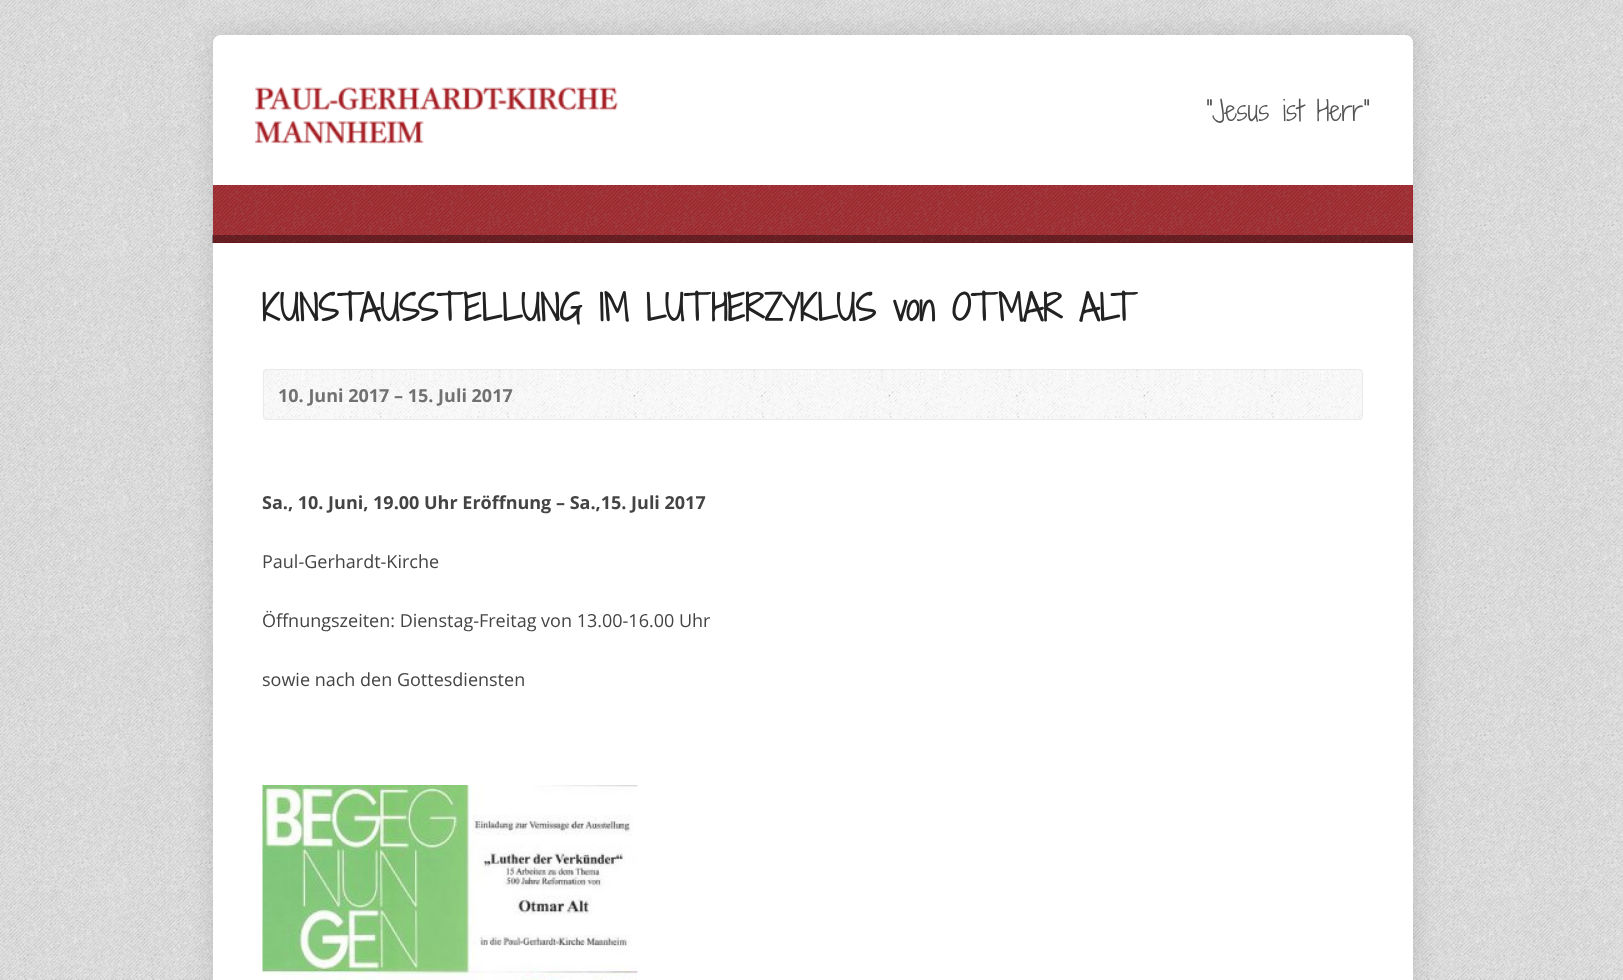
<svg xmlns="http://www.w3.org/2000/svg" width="1623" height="980">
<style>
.a{font:27px Shadows Into Light Two;fill:#555}
.b{font:bold 34.2px Shadows Into Light Two;fill:#222}
.c{font:bold 18px Open Sans;fill:#717171}
.d{font:bold 18px Open Sans;fill:#444}
.e{font:18px Open Sans;fill:#444}
</style>
<rect width="100%" height="100%" fill="#f0f0f0"/>
<image href="1.png" x="0" y="0" width="1623" height="980"/>
<rect fill="#0000001f" filter="blur(12.5px)" x="213" y="35" width="1200" height="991" rx="8"/>
<rect fill="#fff" x="213" y="35" width="1200" height="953" rx="8"/>
<image href="2.png" x="255" y="87" width="363" height="57"/>
<path fill="#a41c22" d="M213 185h1200v58H213z"/>
<image href="3.png" x="212" y="185" width="1201" height="58"/>
<path fill="#00000059" d="M212 235h1201v8H212z"/>
<image href="4.png" x="262" y="369" width="1100" height="51"/>
<rect fill="none" stroke="#eaeaea" x="263.5" y="369.5" width="1099" height="50" rx="3.5"/>
<image href="5.png" x="262" y="785" width="376" height="195"/>
<text class="a" x="1206" y="121">"Jesus ist Herr"</text>
<text class="b" x="262" y="321">KUNSTAUSSTELLUNG IM LUTHERZYKLUS von OTMAR ALT</text>
<text class="c" x="278" y="402">10. Juni 2017 – 15. Juli 2017</text>
<text class="d" x="262" y="509">Sa., 10. Juni, 19.00 Uhr Eröffnung – Sa.,15. Juli 2017</text>
<text class="e" x="262" y="568">Paul-Gerhardt-Kirche</text>
<text class="e" x="262" y="627">Öffnungszeiten: Dienstag-Freitag von 13.00-16.00 Uhr</text>
<text class="e" x="262" y="686">sowie nach den Gottesdiensten</text>
</svg>
